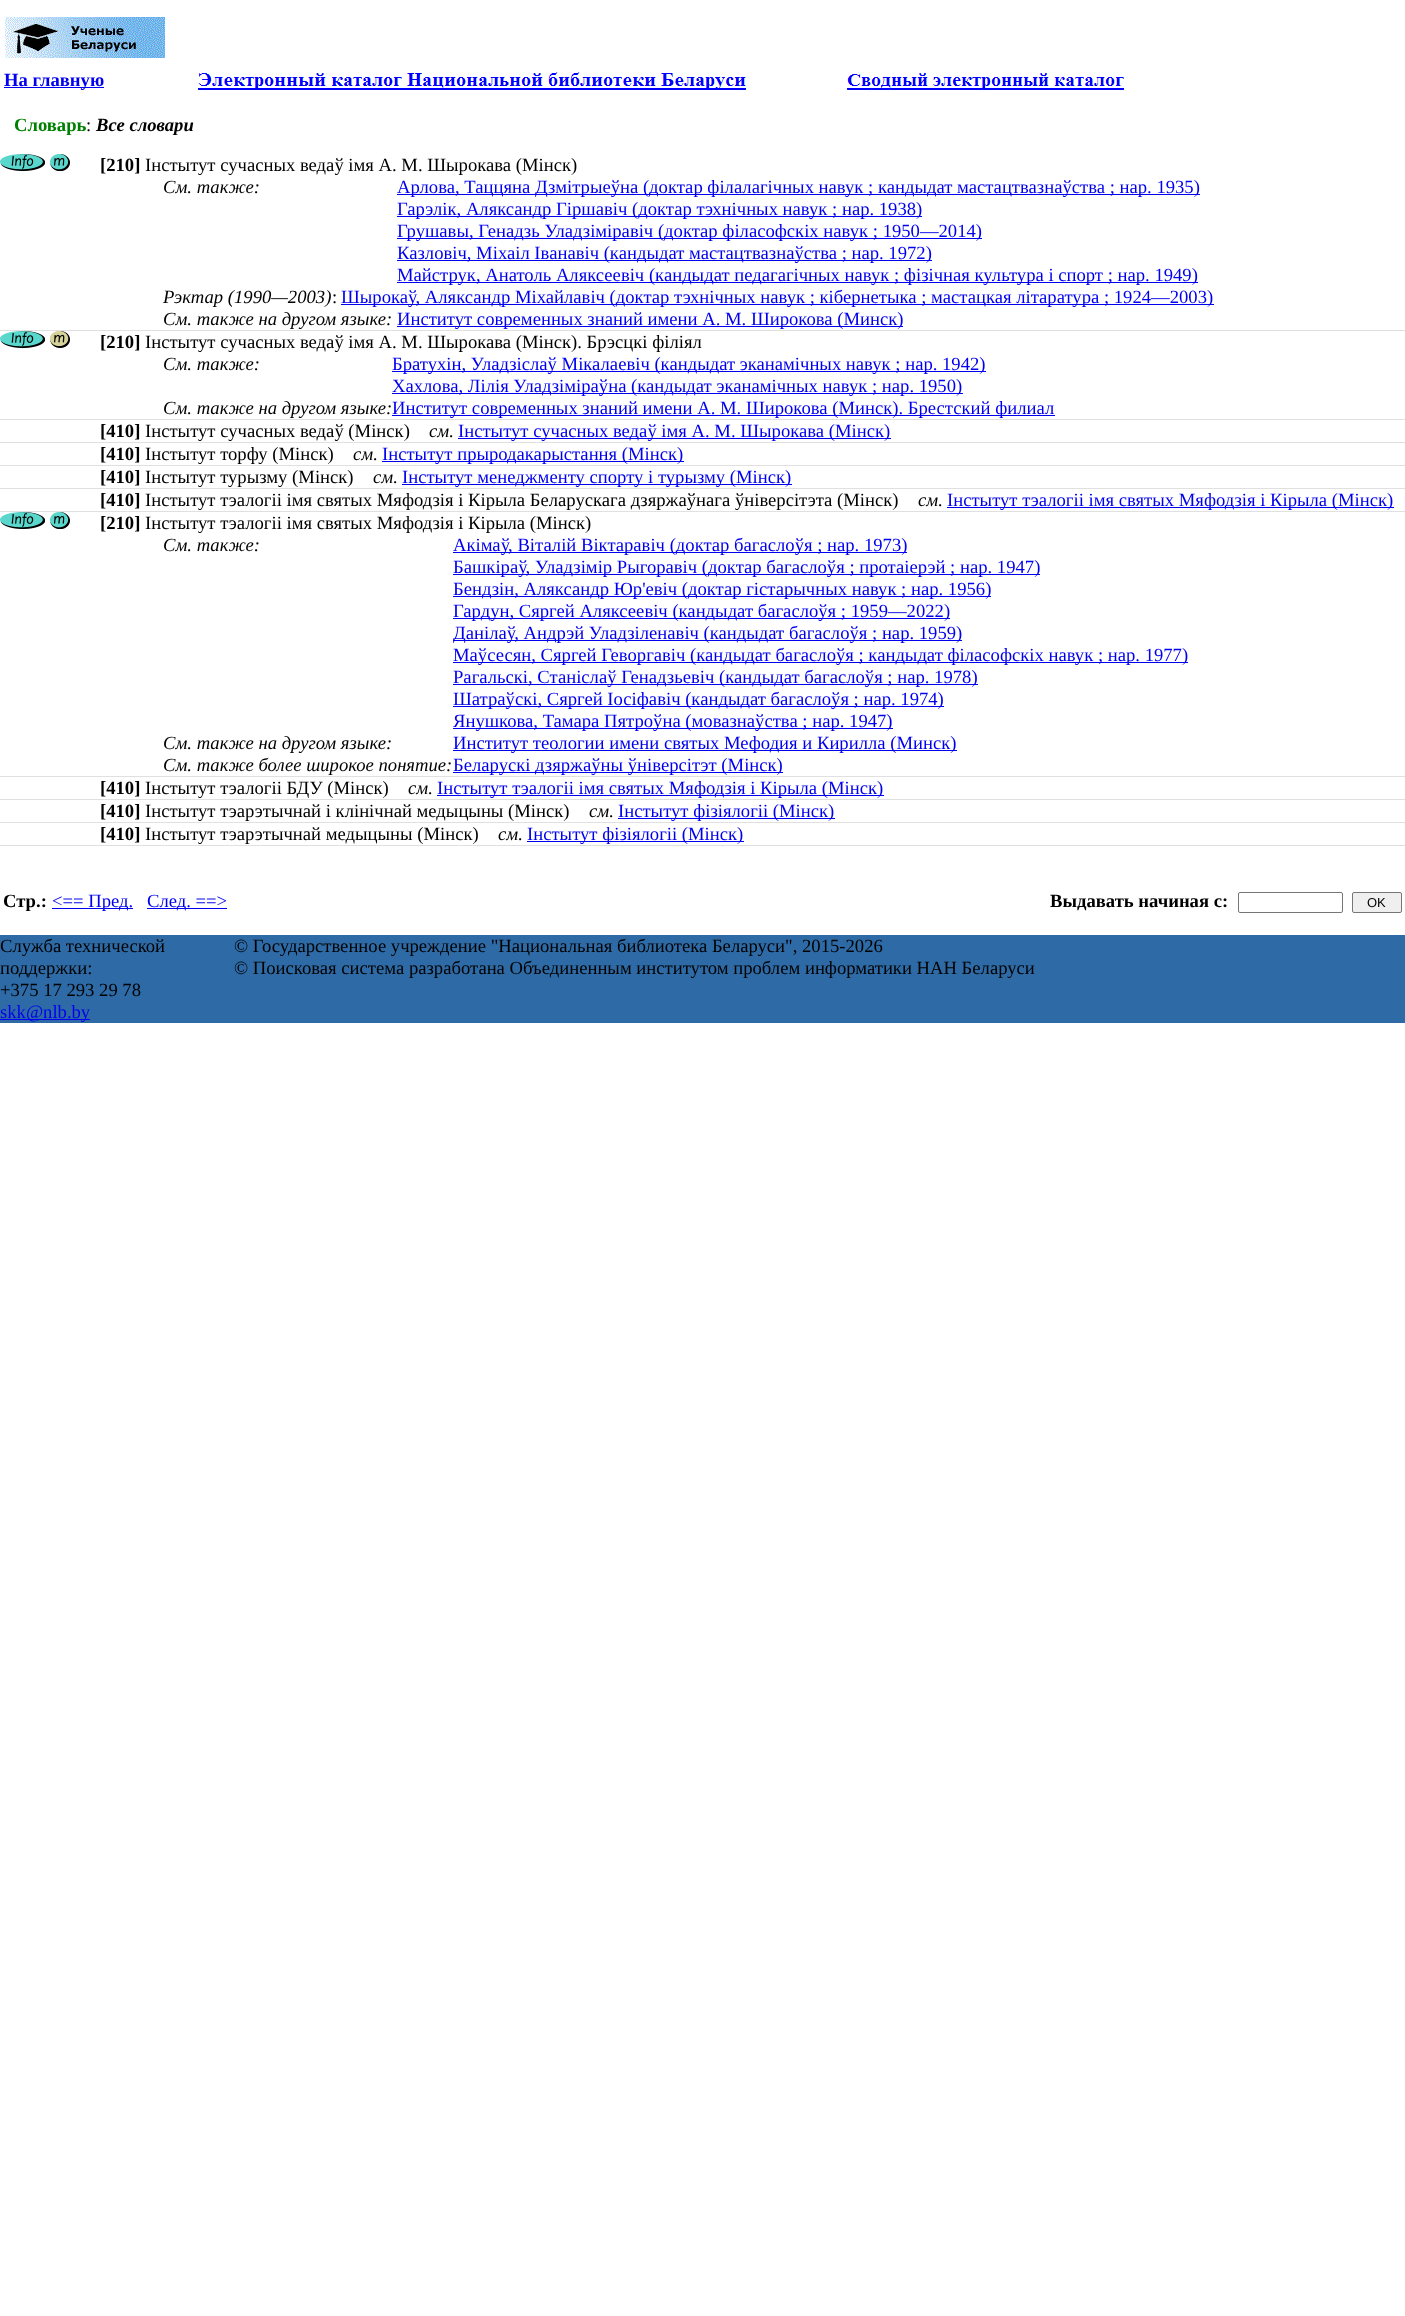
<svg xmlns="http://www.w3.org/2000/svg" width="1405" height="2316">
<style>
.a{font:bold 18.65px Liberation Serif;fill:#00e}
.b{font:bold 18.65px Liberation Serif;fill:#008000}
.c{font:18.65px Liberation Serif;fill:#000}
.d{font:italic bold 18.65px Liberation Serif;fill:#000}
.e{font:bold 18.65px Liberation Serif;fill:#000}
.f{font:italic 18.65px Liberation Serif;fill:#000}
.g{font:18.65px Liberation Serif;fill:#00e}
.h{font:13px Liberation Sans;fill:#000}
</style>
<rect width="100%" height="100%" fill="#fff"/>
<image href="1.png" x="5" y="17" width="160" height="41"/>
<path fill="#00e" d="M4 87h100v1H4z"/>
<image href="2.png" x="198" y="72" width="548" height="18"/>
<image href="3.png" x="847" y="73" width="277" height="17"/>
<image href="4.png" x="0" y="154" width="45" height="17"/>
<image href="5.png" x="50" y="154" width="20" height="17"/>
<path fill="#e0e0e0" d="M0 330h1405v1H0z"/>
<path fill="#00e" d="M397 194h803v1H397z"/>
<path fill="#00e" d="M397 216h525v1H397z"/>
<path fill="#00e" d="M397 238h585v1H397z"/>
<path fill="#00e" d="M397 260h535v1H397z"/>
<path fill="#00e" d="M397 282h801v1H397z"/>
<path fill="#00e" d="M341 304h873v1H341z"/>
<path fill="#00e" d="M397 326h506v1H397z"/>
<image href="4.png" x="0" y="331" width="45" height="17"/>
<image href="6.png" x="50" y="331" width="20" height="17"/>
<path fill="#e0e0e0" d="M0 419h1405v1H0z"/>
<path fill="#00e" d="M392 371h594v1H392z"/>
<path fill="#00e" d="M392 393h571v1H392z"/>
<path fill="#00e" d="M392 415h663v1H392z"/>
<path fill="#e0e0e0" d="M0 442h1405v1H0z"/>
<path fill="#00e" d="M458 438h433v1H458z"/>
<path fill="#e0e0e0" d="M0 465h1405v1H0z"/>
<path fill="#00e" d="M382 461h302v1H382z"/>
<path fill="#e0e0e0" d="M0 488h1405v1H0z"/>
<path fill="#00e" d="M402 484h390v1H402z"/>
<path fill="#e0e0e0" d="M0 511h1405v1H0z"/>
<path fill="#00e" d="M947 507h447v1H947z"/>
<image href="4.png" x="0" y="512" width="45" height="17"/>
<image href="5.png" x="50" y="512" width="20" height="17"/>
<path fill="#e0e0e0" d="M0 776h1405v1H0z"/>
<path fill="#00e" d="M453 552h454v1H453z"/>
<path fill="#00e" d="M453 574h587v1H453z"/>
<path fill="#00e" d="M453 596h538v1H453z"/>
<path fill="#00e" d="M453 618h497v1H453z"/>
<path fill="#00e" d="M453 640h509v1H453z"/>
<path fill="#00e" d="M453 662h735v1H453z"/>
<path fill="#00e" d="M453 684h525v1H453z"/>
<path fill="#00e" d="M453 706h491v1H453z"/>
<path fill="#00e" d="M453 728h440v1H453z"/>
<path fill="#00e" d="M453 750h504v1H453z"/>
<path fill="#00e" d="M453 772h330v1H453z"/>
<path fill="#e0e0e0" d="M0 799h1405v1H0z"/>
<path fill="#00e" d="M437 795h447v1H437z"/>
<path fill="#e0e0e0" d="M0 822h1405v1H0z"/>
<path fill="#00e" d="M618 818h217v1H618z"/>
<path fill="#e0e0e0" d="M0 845h1405v1H0z"/>
<path fill="#00e" d="M527 841h217v1H527z"/>
<path fill="#00e" d="M52 908h81v1H52z"/>
<path fill="#00e" d="M147 908h80v1H147z"/>
<rect fill="none" stroke="#767676" x="1238.5" y="892.5" width="104" height="20" rx="1.5"/>
<rect fill="#efefef" stroke="#767676" x="1352.5" y="892.5" width="49" height="20" rx="1.5"/>
<path fill="#2e6ba6" d="M0 935h1405v88H0z"/>
<path fill="#00e" d="M0 1019h90v1H0z"/>
<text class="a" x="4" y="86">На главную</text>
<text class="b" x="14" y="131">Словарь</text>
<text class="c" x="86" y="131">:</text>
<text class="d" x="96" y="131">Все словари</text>
<text class="e" x="100" y="171">[210]</text>
<text class="c" x="145" y="171">Інстытут сучасных ведаў імя А. М. Шырокава (Мінск)</text>
<text class="f" x="163" y="193">См. также:</text>
<text class="g" x="397" y="193">Арлова, Таццяна Дзмітрыеўна (доктар філалагічных навук ; кандыдат мастацтвазнаўства ; нар. 1935)</text>
<text class="g" x="397" y="215">Гарэлік, Аляксандр Гіршавіч (доктар тэхнічных навук ; нар. 1938)</text>
<text class="g" x="397" y="237">Грушавы, Генадзь Уладзіміравіч (доктар філасофскіх навук ; 1950—2014)</text>
<text class="g" x="397" y="259">Казловіч, Міхаіл Іванавіч (кандыдат мастацтвазнаўства ; нар. 1972)</text>
<text class="g" x="397" y="281">Майструк, Анатоль Аляксеевіч (кандыдат педагагічных навук ; фізічная культура і спорт ; нар. 1949)</text>
<text class="f" x="163" y="303">Рэктар (1990—2003)</text>
<text class="c" x="332" y="303">:</text>
<text class="g" x="341" y="303">Шырокаў, Аляксандр Міхайлавіч (доктар тэхнічных навук ; кібернетыка ; мастацкая літаратура ; 1924—2003)</text>
<text class="f" x="163" y="325">См. также на другом языке:</text>
<text class="g" x="397" y="325">Институт современных знаний имени А. М. Широкова (Минск)</text>
<text class="e" x="100" y="348">[210]</text>
<text class="c" x="145" y="348">Інстытут сучасных ведаў імя А. М. Шырокава (Мінск). Брэсцкі філіял</text>
<text class="f" x="163" y="370">См. также:</text>
<text class="g" x="392" y="370">Братухін, Уладзіслаў Мікалаевіч (кандыдат эканамічных навук ; нар. 1942)</text>
<text class="g" x="392" y="392">Хахлова, Лілія Уладзіміраўна (кандыдат эканамічных навук ; нар. 1950)</text>
<text class="f" x="163" y="414">См. также на другом языке:</text>
<text class="g" x="392" y="414">Институт современных знаний имени А. М. Широкова (Минск). Брестский филиал</text>
<text class="e" x="100" y="437">[410]</text>
<text class="c" x="145" y="437">Інстытут сучасных ведаў (Мінск)</text>
<text class="f" x="429" y="437">см.</text>
<text class="g" x="458" y="437">Інстытут сучасных ведаў імя А. М. Шырокава (Мінск)</text>
<text class="e" x="100" y="460">[410]</text>
<text class="c" x="145" y="460">Інстытут торфу (Мінск)</text>
<text class="f" x="353" y="460">см.</text>
<text class="g" x="382" y="460">Інстытут прыродакарыстання (Мінск)</text>
<text class="e" x="100" y="483">[410]</text>
<text class="c" x="145" y="483">Інстытут турызму (Мінск)</text>
<text class="f" x="373" y="483">см.</text>
<text class="g" x="402" y="483">Інстытут менеджменту спорту і турызму (Мінск)</text>
<text class="e" x="100" y="506">[410]</text>
<text class="c" x="145" y="506">Інстытут тэалогіі імя святых Мяфодзія і Кірыла Беларускага дзяржаўнага ўніверсітэта (Мінск)</text>
<text class="f" x="918" y="506">см.</text>
<text class="g" x="947" y="506">Інстытут тэалогіі імя святых Мяфодзія і Кірыла (Мінск)</text>
<text class="e" x="100" y="529">[210]</text>
<text class="c" x="145" y="529">Інстытут тэалогіі імя святых Мяфодзія і Кірыла (Мінск)</text>
<text class="f" x="163" y="551">См. также:</text>
<text class="g" x="453" y="551">Акімаў, Віталій Віктаравіч (доктар багаслоўя ; нар. 1973)</text>
<text class="g" x="453" y="573">Башкіраў, Уладзімір Рыгоравіч (доктар багаслоўя ; протаіерэй ; нар. 1947)</text>
<text class="g" x="453" y="595">Бендзін, Аляксандр Юр'евіч (доктар гістарычных навук ; нар. 1956)</text>
<text class="g" x="453" y="617">Гардун, Сяргей Аляксеевіч (кандыдат багаслоўя ; 1959—2022)</text>
<text class="g" x="453" y="639">Данілаў, Андрэй Уладзіленавіч (кандыдат багаслоўя ; нар. 1959)</text>
<text class="g" x="453" y="661">Маўсесян, Сяргей Геворгавiч (кандыдат багаслоўя ; кандыдат філасофскіх навук ; нар. 1977)</text>
<text class="g" x="453" y="683">Рагальскі, Станіслаў Генадзьевіч (кандыдат багаслоўя ; нар. 1978)</text>
<text class="g" x="453" y="705">Шатраўскі, Сяргей Іосіфавіч (кандыдат багаслоўя ; нар. 1974)</text>
<text class="g" x="453" y="727">Янушкова, Тамара Пятроўна (мовазнаўства ; нар. 1947)</text>
<text class="f" x="163" y="749">См. также на другом языке:</text>
<text class="g" x="453" y="749">Институт теологии имени святых Мефодия и Кирилла (Минск)</text>
<text class="f" x="163" y="771">См. также более широкое понятие:</text>
<text class="g" x="453" y="771">Беларускі дзяржаўны ўніверсітэт (Мінск)</text>
<text class="e" x="100" y="794">[410]</text>
<text class="c" x="145" y="794">Інстытут тэалогіі БДУ (Мінск)</text>
<text class="f" x="408" y="794">см.</text>
<text class="g" x="437" y="794">Інстытут тэалогіі імя святых Мяфодзія і Кірыла (Мінск)</text>
<text class="e" x="100" y="817">[410]</text>
<text class="c" x="145" y="817">Інстытут тэарэтычнай і клінічнай медыцыны (Мінск)</text>
<text class="f" x="589" y="817">см.</text>
<text class="g" x="618" y="817">Інстытут фізіялогіі (Мінск)</text>
<text class="e" x="100" y="840">[410]</text>
<text class="c" x="145" y="840">Інстытут тэарэтычнай медыцыны (Мінск)</text>
<text class="f" x="498" y="840">см.</text>
<text class="g" x="527" y="840">Інстытут фізіялогіі (Мінск)</text>
<text class="e" x="3" y="907">Стр.:</text>
<text class="g" x="52" y="907">&lt;== Пред.</text>
<text class="g" x="147" y="907">След. ==&gt;</text>
<text class="e" x="1050" y="907">Выдавать начиная с:</text>
<text class="h" x="1367" y="907">OK</text>
<text class="c" x="0" y="952">Служба технической</text>
<text class="c" x="0" y="974">поддержки:</text>
<text class="c" x="0" y="996">+375 17 293 29 78</text>
<text class="g" x="0" y="1018">skk@nlb.by</text>
<text class="c" x="234" y="952">© Государственное учреждение "Национальная библиотека Беларуси", 2015-2026</text>
<text class="c" x="234" y="974">© Поисковая система разработана Объединенным институтом проблем информатики НАН Беларуси</text>
</svg>
